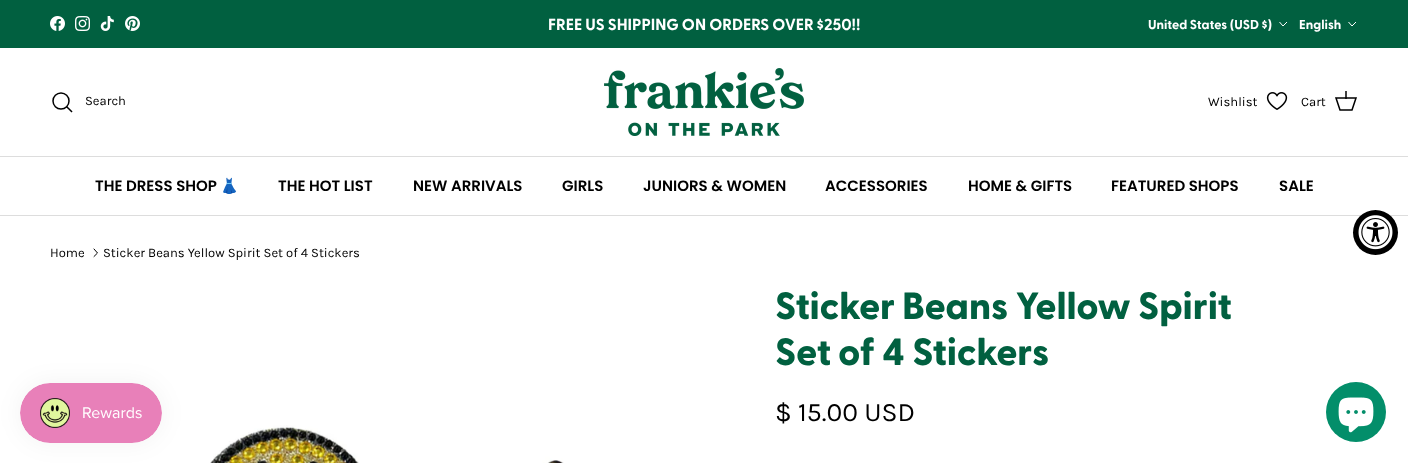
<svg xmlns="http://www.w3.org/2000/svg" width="1408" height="463">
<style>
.a{font:bold 16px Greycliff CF;fill:#fff}
.b{font:bold 13px Greycliff CF;fill:#fff}
.c{font:13px Karla;fill:#000}
.d{font:600 15px Poppins;fill:#000}
.e{font:bold 15px Noto Color Emoji;fill:#000}
.f{font:800 38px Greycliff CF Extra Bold;fill:#016040}
.g{font:26.5px Karla;fill:#000}
</style>
<rect width="100%" height="100%" fill="#fff"/>
<path fill="#016040" d="M0 0h1408v48H0z"/>
<image href="1.png" x="50" y="16" width="15" height="15"/>
<image href="2.png" x="75" y="16" width="15" height="15"/>
<image href="3.png" x="100" y="16" width="14" height="15"/>
<image href="4.png" x="125" y="16" width="15" height="15"/>
<path fill="none" stroke="#fff" d="M1287 22l-4 4l-3.5-4"/>
<path fill="none" stroke="#fff" d="M1356 22l-4 4l-3.5-4"/>
<path fill="#ddd" d="M0 156h1408v1H0z"/>
<circle fill="none" stroke="#000" stroke-width="1.5" cx="61" cy="101" r="8"/>
<path fill="none" stroke="#000" stroke-width="1.5" stroke-linecap="square" d="M67 107l4.5 4.5"/>
<image href="5.png" x="604" y="68" width="200" height="68"/>
<image href="6.png" x="1266" y="92" width="22" height="18"/>
<path fill="none" stroke="#000" stroke-width="1.5" d="M1336 98h20l-4 12h-12z"/>
<path fill="#000000bf" d="M1345 91h2v8H1345z"/>
<path fill="#ddd" d="M0 215h1408v1H0z"/>
<circle fill="#000" cx="1375.5" cy="232.5" r="22.5"/>
<image href="7.png" x="1358" y="215" width="35" height="35"/>
<path fill="none" stroke="#000" stroke-linecap="round" stroke-linejoin="round" d="M94 256.5l3.5-3.5l-3.5-4"/>
<image href="8.png" x="210" y="425" width="354" height="38"/>
<rect fill="#0000000d" filter="blur(12.5px)" x="20" y="383" width="142" height="60" rx="30"/>
<image href="9.png" x="20" y="383" width="142" height="60"/>
<circle fill="#038e6a" cx="1356" cy="412" r="30"/>
<image href="10.png" x="1338" y="397" width="36" height="36"/>
<text class="a" x="548" y="30">FREE US SHIPPING ON ORDERS OVER $250!!</text>
<text class="b" x="1148" y="29">United States (USD $)</text>
<text class="b" x="1299" y="29">English</text>
<text class="c" x="85" y="105">Search</text>
<text class="c" x="1208" y="106">Wishlist</text>
<text class="c" x="1301" y="106">Cart</text>
<text class="d" x="95" y="191">THE DRESS SHOP</text>
<text class="e" x="220" y="191">👗</text>
<text class="d" x="278" y="191">THE HOT LIST</text>
<text class="d" x="413" y="191">NEW ARRIVALS</text>
<text class="d" x="562" y="191">GIRLS</text>
<text class="d" x="643" y="191">JUNIORS &amp; WOMEN</text>
<text class="d" x="825" y="191">ACCESSORIES</text>
<text class="d" x="968" y="191">HOME &amp; GIFTS</text>
<text class="d" x="1111" y="191">FEATURED SHOPS</text>
<text class="d" x="1279" y="191">SALE</text>
<text class="c" x="50" y="257">Home</text>
<text class="c" x="103" y="257">Sticker Beans Yellow Spirit Set of 4 Stickers</text>
<text class="f" x="775" y="319">Sticker Beans Yellow Spirit</text>
<text class="f" x="775" y="365">Set of 4 Stickers</text>
<text class="g" x="775" y="421">$ 15.00 USD</text>
</svg>
